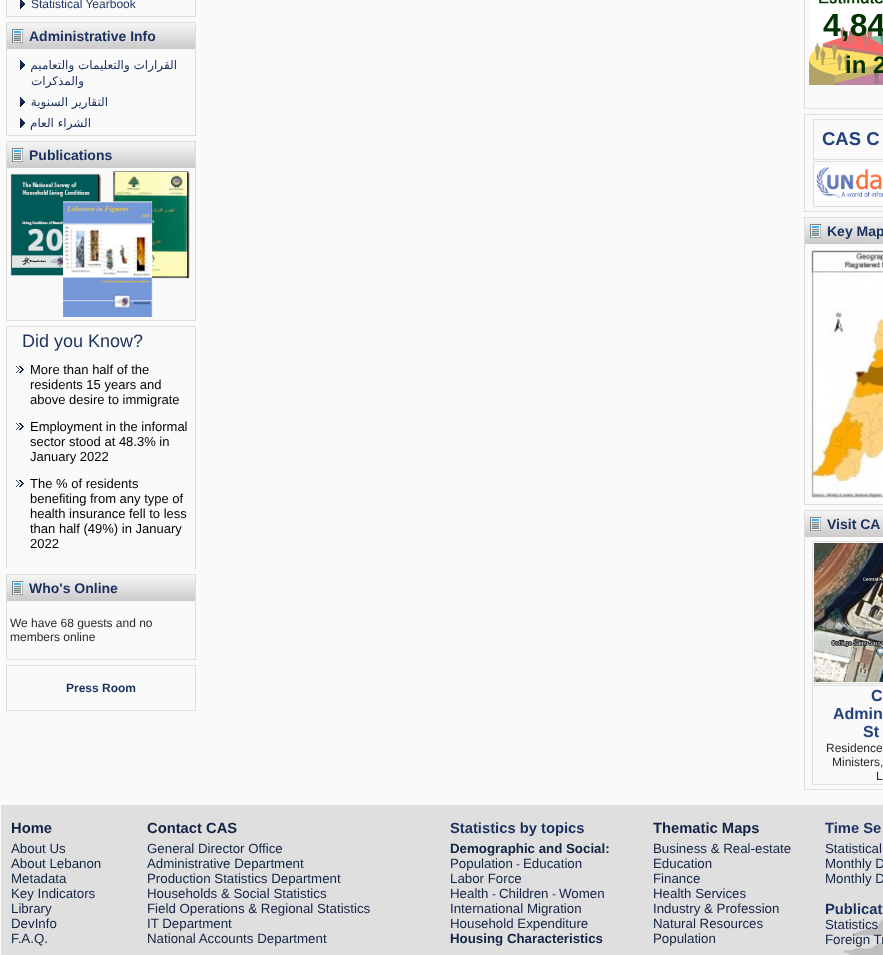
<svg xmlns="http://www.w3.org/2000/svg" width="883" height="955">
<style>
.a{font:12px Liberation Sans;fill:#1b315f}
.b{font:bold 14px Liberation Sans;fill:#1b315f}
.c{font:12px DejaVu Sans;direction:rtl;fill:#1b315f}
.d{font:18px Liberation Sans;fill:#1b315f}
.e{font:13px Liberation Sans;fill:#000}
.f{font:12px Liberation Sans;fill:#292929}
.g{font:bold 12px Liberation Sans;fill:#1b315f}
.h{font:bold 32px Liberation Sans;fill:#030}
.i{font:bold 24px Liberation Sans;fill:#030}
.j{font:bold 18.5px Liberation Sans;fill:#24417f}
.k{font:bold 16px Liberation Sans;fill:#24417f}
.l{font:bold 14.75px Liberation Sans;fill:#132344}
.m{font:bold 14.75px Liberation Sans;fill:#1b315f}
.n{font:13.3px Liberation Sans;fill:#132344}
.o{font:bold 13.3px Liberation Sans;fill:#132344}
</style>
<rect width="100%" height="100%" fill="#fafafa"/>
<path fill="#dedede" d="M6 0h190v17H6z"/>
<path fill="#fafafa" d="M7 0h188v16H7z"/>
<image href="1.png" x="20" y="0" width="5" height="9"/>
<path fill="#dedede" d="M6 22h190v114H6z"/>
<image href="2.png" x="7" y="23" width="172" height="26"/>
<image href="3.png" x="179" y="23" width="16" height="26"/>
<path fill="#fafafa" d="M7 49h188v86H7z"/>
<image href="4.png" x="20" y="60" width="5" height="10"/>
<image href="4.png" x="20" y="97" width="5" height="10"/>
<image href="4.png" x="20" y="118" width="5" height="10"/>
<path fill="#dedede" d="M6 141h190v180H6z"/>
<image href="2.png" x="7" y="142" width="172" height="26"/>
<image href="3.png" x="179" y="142" width="16" height="26"/>
<path fill="#fafafa" d="M7 168h188v152H7z"/>
<image href="5.png" x="10" y="171" width="180" height="146"/>
<image href="6.png" x="6" y="326" width="189" height="1"/>
<path fill="#dedede" d="M195 327h1v241H195z"/>
<image href="7.png" x="195" y="326" width="1" height="243"/>
<path fill="#dedede" d="M6 327h1v241H6z"/>
<image href="8.png" x="16" y="366" width="8" height="7"/>
<image href="8.png" x="16" y="423" width="8" height="7"/>
<image href="8.png" x="16" y="480" width="8" height="7"/>
<path fill="#dedede" d="M6 574h190v86H6z"/>
<image href="2.png" x="7" y="575" width="172" height="26"/>
<image href="3.png" x="179" y="575" width="16" height="26"/>
<path fill="#fafafa" d="M7 601h188v58H7z"/>
<path fill="#dedede" d="M6 665h190v46H6z"/>
<path fill="#fafafa" d="M7 666h188v44H7z"/>
<path fill="#dedede" d="M804 0h79v109H804z"/>
<path fill="#fafafa" d="M805 0h78v108H805z"/>
<image href="9.png" x="809" y="0" width="74" height="85"/>
<path fill="#dedede" d="M804 114h79v98H804z"/>
<path fill="#fafafa" d="M805 115h78v96H805z"/>
<path fill="none" stroke="#dedede" d="M813.5 119.5h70v40H813.5z"/>
<path fill="none" stroke="#dedede" d="M813.5 161.5h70v45H813.5z"/>
<image href="10.png" x="815" y="166" width="68" height="35"/>
<path fill="#dedede" d="M804 217h79v288H804z"/>
<image href="11.png" x="805" y="218" width="78" height="26"/>
<path fill="#fafafa" d="M805 244h78v260H805z"/>
<image href="12.png" x="808" y="247" width="75" height="254"/>
<path fill="#dedede" d="M804 510h79v280H804z"/>
<image href="11.png" x="805" y="511" width="78" height="26"/>
<path fill="#fafafa" d="M805 537h78v252H805z"/>
<path fill="none" stroke="#dedede" d="M812.5 541.5h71v142H812.5z"/>
<image href="13.png" x="814" y="543" width="69" height="139"/>
<path fill="none" stroke="#dedede" d="M812.5 685.5h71v99H812.5z"/>
<path fill="#dfdfdf" d="M1 805h882v150H1z"/>
<image href="14.png" x="844" y="920" width="39" height="35"/>
<text class="a" x="31" y="8">Statistical Yearbook</text>
<text class="b" x="29" y="41">Administrative Info</text>
<text class="c" x="177" y="69">القرارات والتعليمات والتعاميم</text>
<text class="c" x="84" y="85">والمذكرات</text>
<text class="c" x="108" y="106">التقارير السنوية</text>
<text class="c" x="91" y="127">الشراء العام</text>
<text class="b" x="29" y="160">Publications</text>
<text class="d" x="22" y="347">Did you Know?</text>
<text class="e" x="30" y="374">More than half of the</text>
<text class="e" x="30" y="389">residents 15 years and</text>
<text class="e" x="30" y="404">above desire to immigrate</text>
<text class="e" x="30" y="431">Employment in the informal</text>
<text class="e" x="30" y="446">sector stood at 48.3% in</text>
<text class="e" x="30" y="461">January 2022</text>
<text class="e" x="30" y="488">The % of residents</text>
<text class="e" x="30" y="503">benefiting from any type of</text>
<text class="e" x="30" y="518">health insurance fell to less</text>
<text class="e" x="30" y="533">than half (49%) in January</text>
<text class="e" x="30" y="548">2022</text>
<text class="b" x="29" y="593">Who's Online</text>
<text class="f" x="10" y="627">We have 68 guests and no</text>
<text class="f" x="10" y="641">members online</text>
<text class="g" x="66" y="692">Press Room</text>
<text class="h" x="823" y="36">4,84</text>
<text class="i" x="845" y="73">in 2</text>
<text class="j" x="822" y="145">CAS C</text>
<text class="b" x="827" y="236">Key Map</text>
<text class="b" x="827" y="529">Visit CA</text>
<text class="k" x="871" y="701">C</text>
<text class="k" x="833" y="719">Admin</text>
<text class="k" x="863" y="737">St</text>
<text class="f" x="826" y="752">Residence</text>
<text class="f" x="832" y="766">Ministers,</text>
<text class="f" x="876" y="780">L</text>
<text class="l" x="11" y="833">Home</text>
<text class="l" x="147" y="833">Contact CAS</text>
<text class="m" x="450" y="833">Statistics by topics</text>
<text class="l" x="653" y="833">Thematic Maps</text>
<text class="m" x="825" y="833">Time Se</text>
<text class="n" x="11" y="853">About Us</text>
<text class="n" x="11" y="868">About Lebanon</text>
<text class="n" x="11" y="883">Metadata</text>
<text class="n" x="11" y="898">Key Indicators</text>
<text class="n" x="11" y="913">Library</text>
<text class="n" x="11" y="928">DevInfo</text>
<text class="n" x="11" y="943">F.A.Q.</text>
<text class="n" x="147" y="853">General Director Office</text>
<text class="n" x="147" y="868">Administrative Department</text>
<text class="n" x="147" y="883">Production Statistics Department</text>
<text class="n" x="147" y="898">Households &amp; Social Statistics</text>
<text class="n" x="147" y="913">Field Operations &amp; Regional Statistics</text>
<text class="n" x="147" y="928">IT Department</text>
<text class="n" x="147" y="943">National Accounts Department</text>
<text class="o" x="450" y="853">Demographic and Social:</text>
<text class="n" x="450" y="868">Population</text>
<text class="a" x="516" y="868">-</text>
<text class="n" x="523" y="868">Education</text>
<text class="n" x="450" y="883">Labor Force</text>
<text class="n" x="450" y="898">Health</text>
<text class="a" x="492" y="898">-</text>
<text class="n" x="499" y="898">Children</text>
<text class="a" x="552" y="898">-</text>
<text class="n" x="559" y="898">Women</text>
<text class="n" x="450" y="913">International Migration</text>
<text class="n" x="450" y="928">Household Expenditure</text>
<text class="o" x="450" y="943">Housing Characteristics</text>
<text class="n" x="653" y="853">Business &amp; Real-estate</text>
<text class="n" x="653" y="868">Education</text>
<text class="n" x="653" y="883">Finance</text>
<text class="n" x="653" y="898">Health Services</text>
<text class="n" x="653" y="913">Industry &amp; Profession</text>
<text class="n" x="653" y="928">Natural Resources</text>
<text class="n" x="653" y="943">Population</text>
<text class="n" x="825" y="853">Statistical</text>
<text class="n" x="825" y="868">Monthly D</text>
<text class="n" x="825" y="883">Monthly D</text>
<text class="m" x="825" y="914">Publicat</text>
<text class="n" x="825" y="929">Statistics</text>
<text class="n" x="825" y="944">Foreign Tr</text>
</svg>
